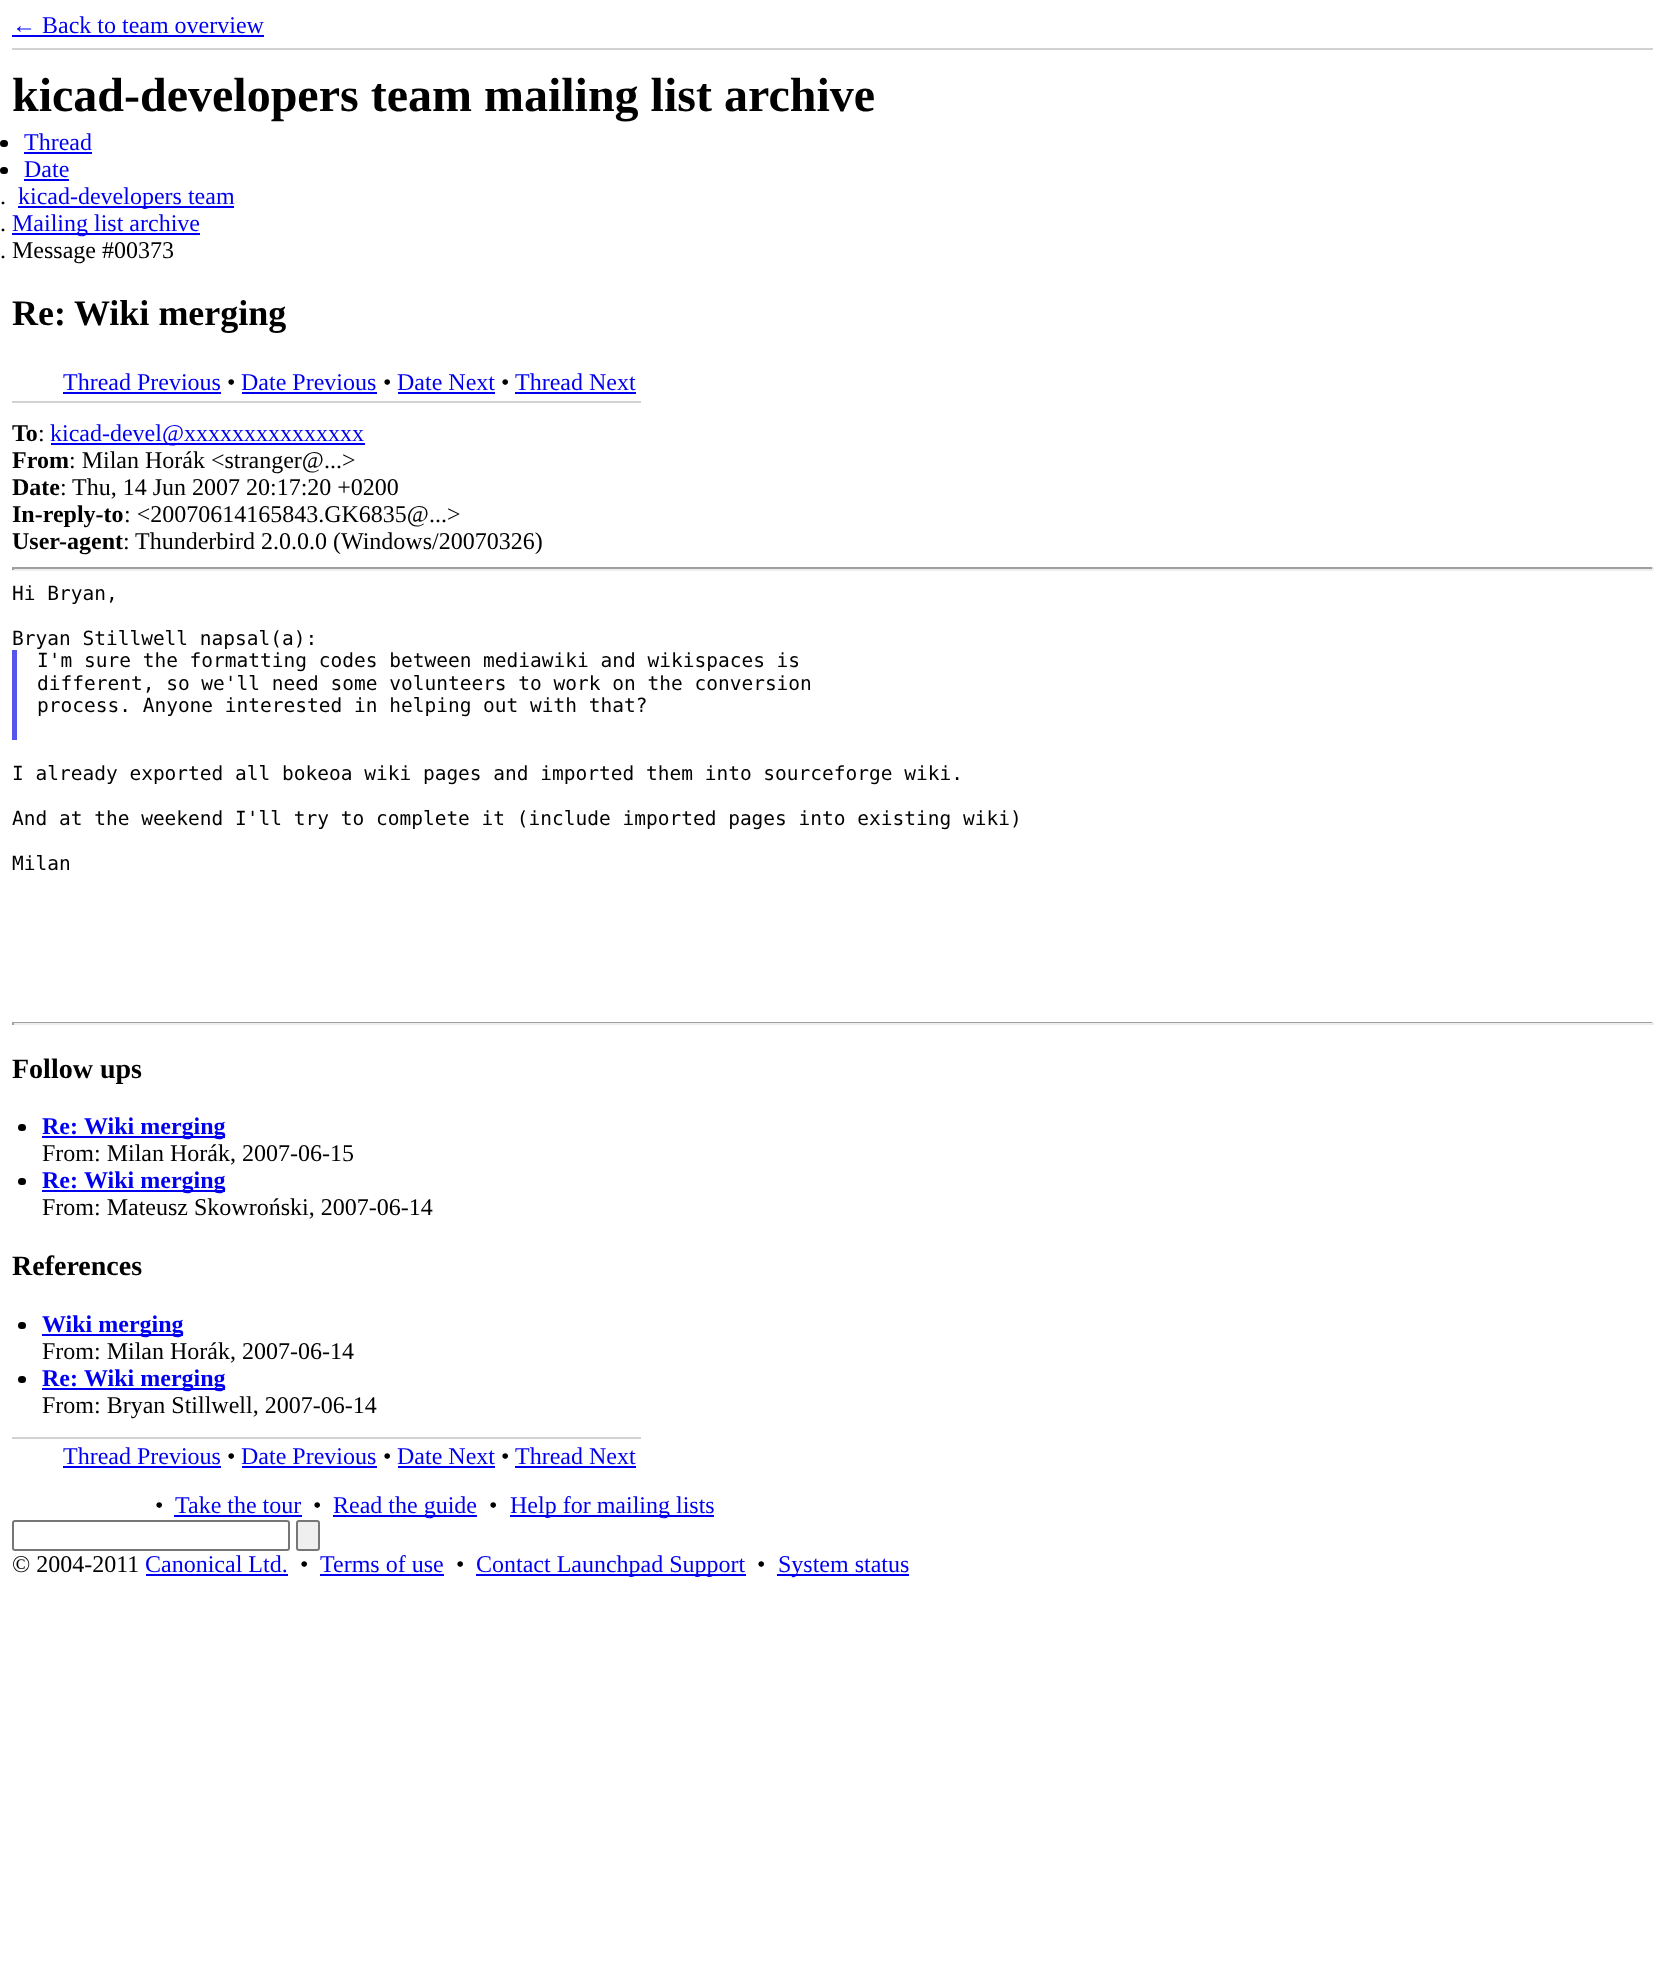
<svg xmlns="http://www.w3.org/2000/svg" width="1665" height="1978">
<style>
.a{font:24px Liberation Serif;fill:#00e}
.b{font:bold 48px Liberation Serif;fill:#000}
.c{font:24px Liberation Serif;fill:#000}
.d{font:bold 36px Liberation Serif;fill:#000}
.e{font:bold 24px Liberation Serif;fill:#000}
.f{font:19.5px DejaVu Sans Mono;fill:#000}
.g{font:bold 28px Liberation Serif;fill:#000}
.h{font:bold 24px Liberation Serif;fill:#00e}
</style>
<rect width="100%" height="100%" fill="#fff"/>
<path fill="#d2d2d2" d="M12 48h1641v2H12z"/>
<path fill="#00e" d="M12 35h252v2H12z"/>
<rect fill="#000" y="140" width="8" height="7" rx="3.5"/>
<path fill="#00e" d="M24 152h68v2H24z"/>
<rect fill="#000" y="167" width="8" height="7" rx="3.5"/>
<path fill="#00e" d="M24 179h45v2H24z"/>
<path fill="#00e" d="M18 206h216v2H18z"/>
<path fill="#00e" d="M12 233h188v2H12z"/>
<path fill="#d2d2d2" d="M12 401h629v2H12z"/>
<path fill="#00e" d="M63 392h158v2H63z"/>
<path fill="#00e" d="M242 392h135v2H242z"/>
<path fill="#00e" d="M398 392h97v2H398z"/>
<path fill="#00e" d="M515 392h121v2H515z"/>
<path fill="#00e" d="M51 443h314v2H51z"/>
<path fill="#9f9f9f" d="M12 567h1641v2H12z"/>
<path fill="#eee" d="M1652 567h2v3H1652z"/>
<path fill="#eee" d="M12 569h1641v2H12z"/>
<path fill="#9f9f9f" d="M12 567h2v3H12z"/>
<path fill="#55e" d="M12 650h5v90H12z"/>
<path fill="#9f9f9f" d="M12 1022h1641v1H12z"/>
<path fill="#eee" d="M1652 1022h2v3H1652z"/>
<path fill="#eee" d="M12 1023h1641v2H12z"/>
<path fill="#9f9f9f" d="M12 1022h2v3H12z"/>
<rect fill="#000" x="18" y="1124" width="8" height="7" rx="3.5"/>
<path fill="#00e" d="M42 1136h183v2H42z"/>
<rect fill="#000" x="18" y="1178" width="8" height="7" rx="3.5"/>
<path fill="#00e" d="M42 1190h183v2H42z"/>
<rect fill="#000" x="18" y="1322" width="8" height="7" rx="3.5"/>
<path fill="#00e" d="M42 1334h141v2H42z"/>
<rect fill="#000" x="18" y="1376" width="8" height="7" rx="3.5"/>
<path fill="#00e" d="M42 1388h183v2H42z"/>
<path fill="#d2d2d2" d="M12 1437h629v2H12z"/>
<path fill="#00e" d="M63 1466h158v2H63z"/>
<path fill="#00e" d="M242 1466h135v2H242z"/>
<path fill="#00e" d="M398 1466h97v2H398z"/>
<path fill="#00e" d="M515 1466h121v2H515z"/>
<path fill="#00e" d="M174 1515h128v2H174z"/>
<path fill="#00e" d="M333 1515h144v2H333z"/>
<path fill="#00e" d="M510 1515h204v2H510z"/>
<rect fill="none" stroke="#767676" stroke-width="2" x="13" y="1521" width="276" height="29" rx="2"/>
<rect fill="#efefef" stroke="#767676" stroke-width="2" x="297" y="1521" width="22" height="29" rx="2"/>
<path fill="#00e" d="M146 1574h142v2H146z"/>
<path fill="#00e" d="M320 1574h124v2H320z"/>
<path fill="#00e" d="M476 1574h270v2H476z"/>
<path fill="#00e" d="M777 1574h132v2H777z"/>
<text class="a" x="12" y="33">← Back to team overview</text>
<text class="b" x="12" y="111">kicad-developers team mailing list archive</text>
<text class="a" x="24" y="150">Thread</text>
<text class="a" x="24" y="177">Date</text>
<text class="c" x="0" y="204">.</text>
<text class="a" x="18" y="204">kicad-developers team</text>
<text class="c" x="0" y="231">.</text>
<text class="a" x="12" y="231">Mailing list archive</text>
<text class="c" x="0" y="258">. Message #00373</text>
<text class="d" x="12" y="325">Re:</text>
<text class="d" x="74" y="325">Wiki merging</text>
<text class="a" x="63" y="390">Thread Previous</text>
<text class="c" x="227" y="390">•</text>
<text class="a" x="241" y="390">Date Previous</text>
<text class="c" x="383" y="390">•</text>
<text class="a" x="397" y="390">Date Next</text>
<text class="c" x="501" y="390">•</text>
<text class="a" x="515" y="390">Thread Next</text>
<text class="e" x="12" y="441">To</text>
<text class="c" x="38" y="441">:</text>
<text class="a" x="50" y="441">kicad-devel@xxxxxxxxxxxxxxx</text>
<text class="e" x="12" y="468">From</text>
<text class="c" x="69" y="468">: Milan Horák &lt;stranger@...&gt;</text>
<text class="e" x="12" y="495">Date</text>
<text class="c" x="60" y="495">:</text>
<text class="c" x="72" y="495">Thu, 14 Jun 2007 20:17:20 +0200</text>
<text class="e" x="12" y="522">In-reply-to</text>
<text class="c" x="124" y="522">: &lt;20070614165843.GK6835@...&gt;</text>
<text class="e" x="12" y="549">User-agent</text>
<text class="c" x="123" y="549">:</text>
<text class="c" x="135" y="549">Thunderbird 2.0.0.0 (Windows/20070326)</text>
<text class="f" x="12" y="600">Hi Bryan,</text>
<text class="f" x="12" y="645">Bryan Stillwell napsal(a):</text>
<text class="f" x="37" y="667">I'm sure the formatting codes between mediawiki and wikispaces is</text>
<text class="f" x="37" y="690">different, so we'll need some volunteers to work on the conversion</text>
<text class="f" x="37" y="712">process. Anyone interested in helping out with that?</text>
<text class="f" x="12" y="780">I already exported all bokeoa wiki pages and imported them into sourceforge wiki.</text>
<text class="f" x="12" y="825">And at the weekend I'll try to complete it (include imported pages into existing wiki)</text>
<text class="f" x="12" y="870">Milan</text>
<text class="g" x="12" y="1078">Follow ups</text>
<text class="h" x="42" y="1134">Re:</text>
<text class="h" x="84" y="1134">Wiki merging</text>
<text class="c" x="42" y="1161">From: Milan Horák, 2007-06-15</text>
<text class="h" x="42" y="1188">Re:</text>
<text class="h" x="84" y="1188">Wiki merging</text>
<text class="c" x="42" y="1215">From: Mateusz Skowroński, 2007-06-14</text>
<text class="g" x="12" y="1275">References</text>
<text class="h" x="42" y="1332">Wiki merging</text>
<text class="c" x="42" y="1359">From: Milan Horák, 2007-06-14</text>
<text class="h" x="42" y="1386">Re:</text>
<text class="h" x="84" y="1386">Wiki merging</text>
<text class="c" x="42" y="1413">From: Bryan Stillwell, 2007-06-14</text>
<text class="a" x="63" y="1464">Thread Previous</text>
<text class="c" x="227" y="1464">•</text>
<text class="a" x="241" y="1464">Date Previous</text>
<text class="c" x="383" y="1464">•</text>
<text class="a" x="397" y="1464">Date Next</text>
<text class="c" x="501" y="1464">•</text>
<text class="a" x="515" y="1464">Thread Next</text>
<text class="c" x="155" y="1513">•</text>
<text class="a" x="175" y="1513">Take the tour</text>
<text class="c" x="313" y="1513">•</text>
<text class="a" x="333" y="1513">Read the guide</text>
<text class="c" x="489" y="1513">•</text>
<text class="a" x="510" y="1513">Help for mailing lists</text>
<text class="c" x="12" y="1572">© 2004-2011</text>
<text class="a" x="145" y="1572">Canonical Ltd.</text>
<text class="c" x="300" y="1572">•</text>
<text class="a" x="320" y="1572">Terms of use</text>
<text class="c" x="456" y="1572">•</text>
<text class="a" x="476" y="1572">Contact Launchpad Support</text>
<text class="c" x="757" y="1572">•</text>
<text class="a" x="778" y="1572">System status</text>
</svg>
